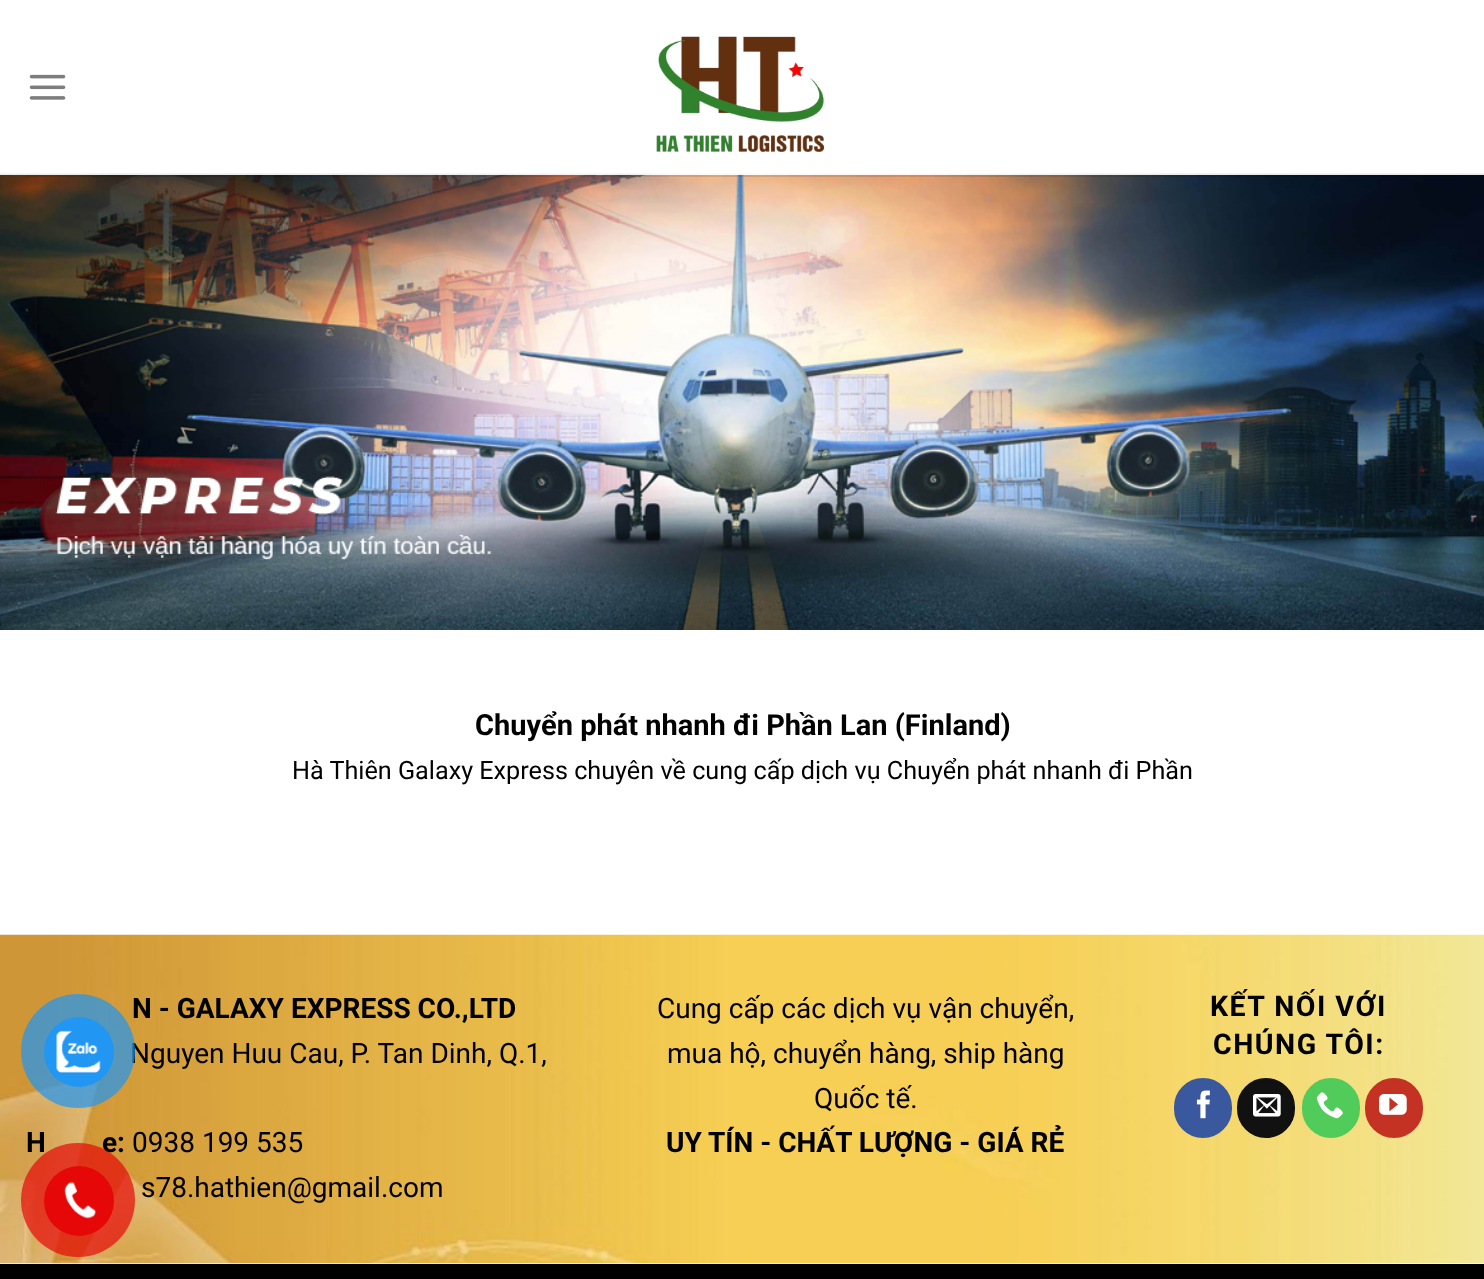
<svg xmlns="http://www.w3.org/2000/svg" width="1484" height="1279">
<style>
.a{font:bold 29px Roboto;fill:#000}
.b{font:25.2px Roboto;fill:#000}
.c{font:bold 28px Roboto;fill:#000}
.d{font:28px Roboto;fill:#000}
.e{font:bold 28.5px Roboto;letter-spacing:1.5px;fill:#000}
</style>
<rect width="100%" height="100%" fill="#fff"/>
<image href="1.png" x="29" y="74" width="37" height="26"/>
<image href="2.png" x="656" y="36" width="169" height="116"/>
<image href="3.png" x="0" y="173" width="1484" height="457"/>
<path fill="#0000001a" d="M26 175h1432v2H26z"/>
<path fill="#ffffffe6" d="M0 173h1484v2H0z"/>
<image href="4.png" x="0" y="934" width="1484" height="330"/>
<rect fill="#3a589d" stroke="#3a589d" stroke-width="2" x="1175" y="1079" width="56" height="58" rx="28"/>
<image href="5.png" x="1196" y="1090" width="14" height="29"/>
<rect fill="#111" stroke="#111" stroke-width="2" x="1238" y="1079" width="56" height="58" rx="28"/>
<image href="6.png" x="1253" y="1094" width="28" height="23"/>
<rect fill="#51cb5a" stroke="#51cb5a" stroke-width="2" x="1303" y="1079" width="56" height="58" rx="28"/>
<image href="7.png" x="1316" y="1092" width="27" height="27"/>
<rect fill="#c33223" stroke="#c33223" stroke-width="2" x="1366" y="1079" width="56" height="58" rx="28"/>
<image href="8.png" x="1379" y="1094" width="28" height="21"/>
<path fill="#000" d="M0 1264h1484v15H0z"/>
<text class="a" x="475" y="735">Chuyển phát nhanh đi Phần Lan (Finland)</text>
<text class="b" x="292" y="779">Hà Thiên Galaxy Express chuyên về cung cấp dịch vụ Chuyển phát nhanh đi Phần</text>
<text class="c" x="132" y="1018">N - GALAXY EXPRESS CO.,LTD</text>
<text class="d" x="130" y="1063">Nguyen Huu Cau, P. Tan Dinh, Q.1,</text>
<text class="c" x="26" y="1152">H</text>
<text class="c" x="102" y="1152">e:</text>
<text class="d" x="132" y="1152">0938 199 535</text>
<text class="d" x="141" y="1197">s78.hathien@gmail.com</text>
<text class="d" x="657" y="1018">Cung cấp các dịch vụ vận chuyển,</text>
<text class="d" x="667" y="1063">mua hộ, chuyển hàng, ship hàng</text>
<text class="d" x="814" y="1108">Quốc tế.</text>
<text class="c" x="666" y="1152">UY TÍN - CHẤT LƯỢNG - GIÁ RẺ</text>
<text class="e" x="1210" y="1016">KẾT NỐI VỚI</text>
<text class="e" x="1213" y="1054">CHÚNG TÔI:</text>
<circle fill="#2196f3b3" cx="78" cy="1051" r="57"/>
<circle fill="#2196f3" cx="79" cy="1052" r="35"/>
<image href="9.png" x="56" y="1030" width="45" height="43"/>
<circle fill="#e60808b3" cx="78" cy="1200" r="57"/>
<circle fill="#e60808" cx="79" cy="1201" r="35"/>
<image href="10.png" x="64" y="1181" width="32" height="38"/>
</svg>
